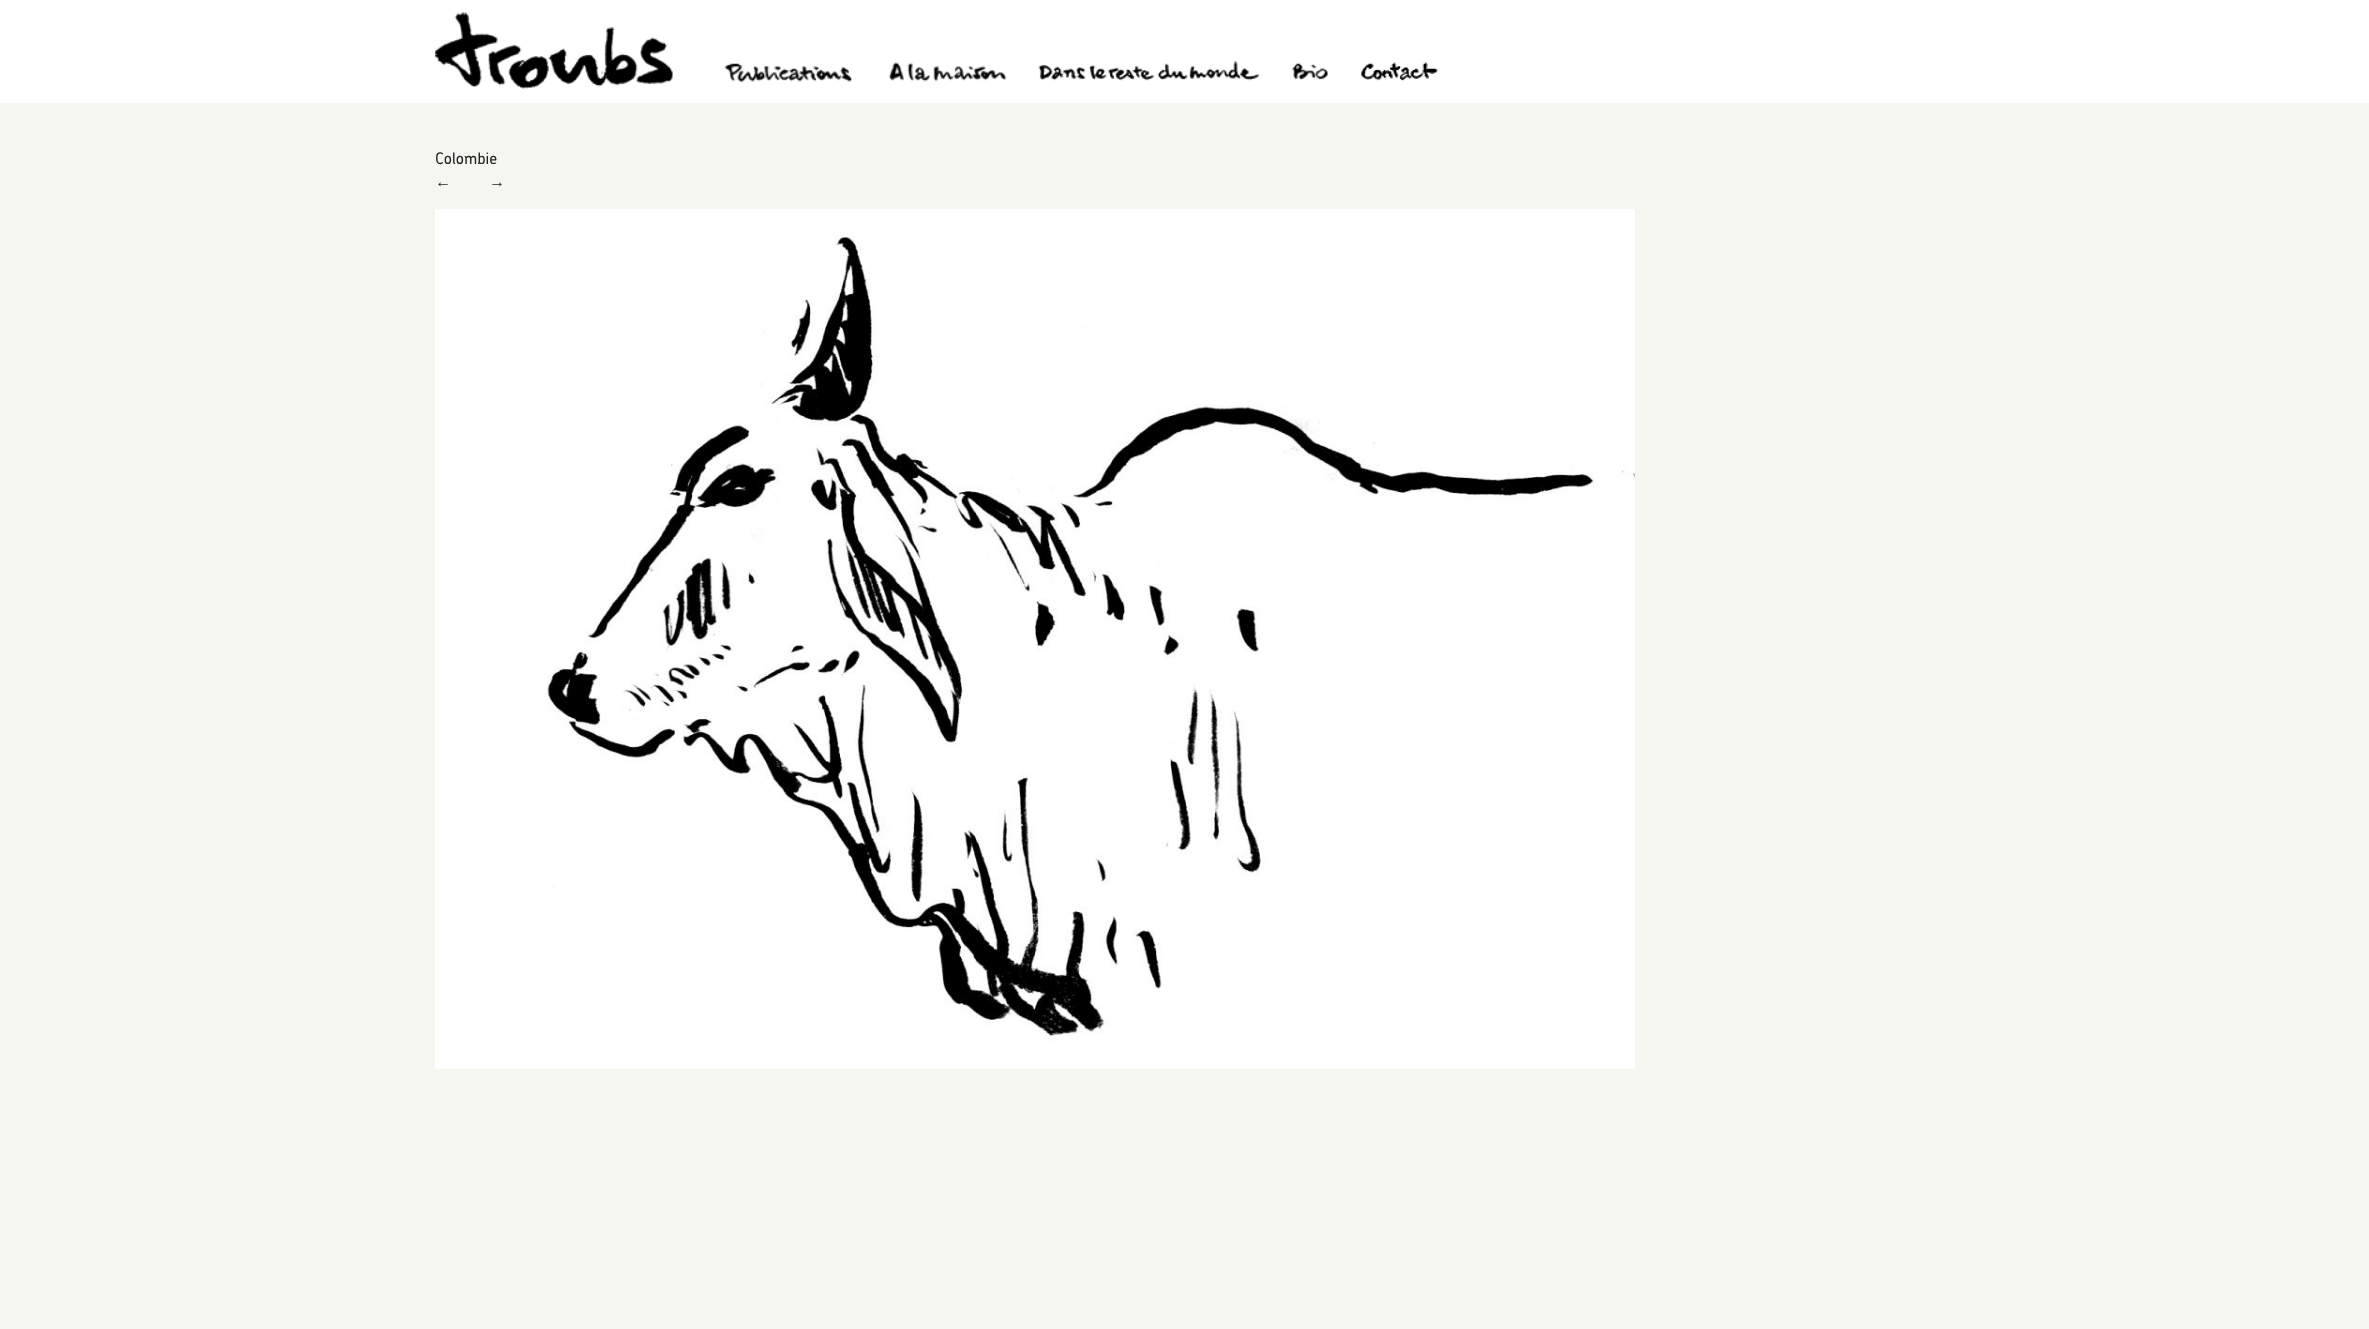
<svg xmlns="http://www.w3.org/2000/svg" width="2369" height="1329">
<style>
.a{font:500 16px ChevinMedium;fill:#222}
.b{font:16px Liberation Sans;fill:#222}
</style>
<rect width="100%" height="100%" fill="#f6f6f1"/>
<path fill="#fff" d="M0 0h2369v103H0z"/>
<image href="1.png" x="435" y="12" width="238" height="77"/>
<image href="2.png" x="724" y="63" width="129" height="20"/>
<image href="3.png" x="888" y="62" width="119" height="20"/>
<image href="4.png" x="1038" y="61" width="221" height="20"/>
<image href="5.png" x="1291" y="63" width="37" height="17"/>
<image href="6.png" x="1361" y="62" width="77" height="19"/>
<image href="7.png" x="435" y="209" width="1200" height="860"/>
<text class="a" x="435" y="164">Colombie</text>
<text class="b" x="435" y="187">←</text>
<text class="b" x="489" y="187">→</text>
</svg>
